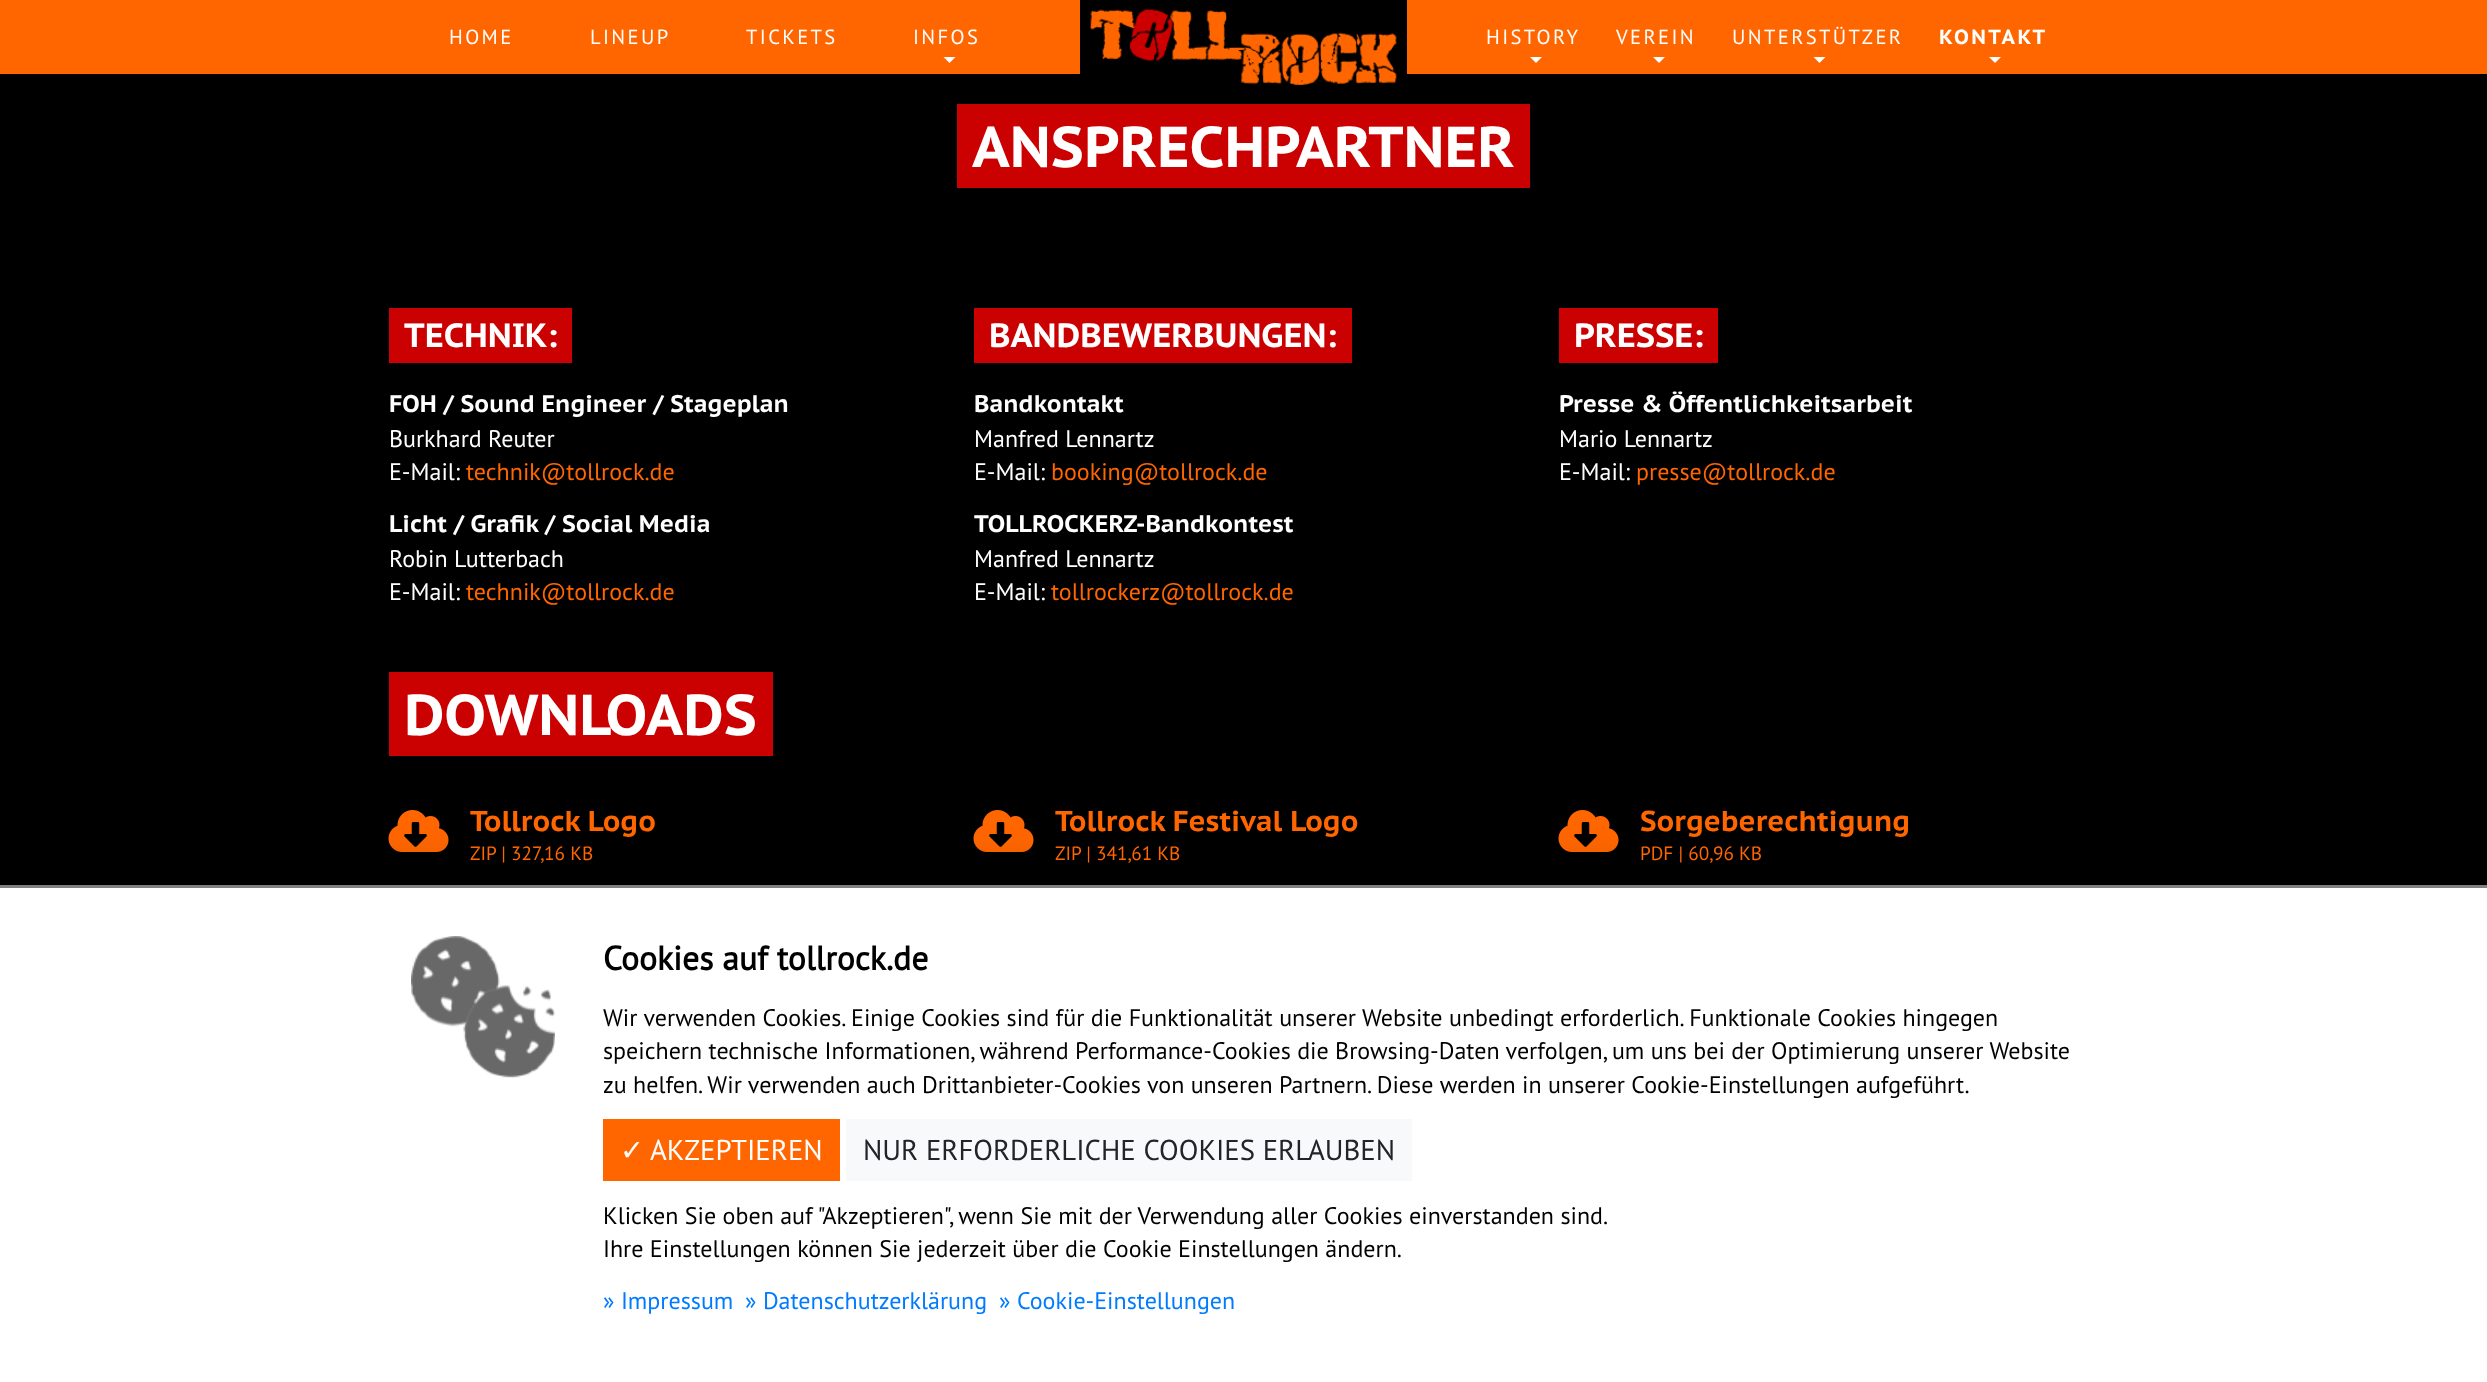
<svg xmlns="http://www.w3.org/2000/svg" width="2487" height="1382">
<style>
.a{font:20.5px PT Sans;letter-spacing:2.4px;fill:#fff}
.b{font:bold 20.5px PT Sans Caption;letter-spacing:2.4px;fill:#fff}
.c{font:bold 57.5px PT Sans Caption;fill:#fff}
.d{font:bold 33.6px PT Sans Caption;fill:#fff}
.e{font:bold 24px PT Sans Caption;fill:#fff}
.f{font:24px PT Sans;fill:#fff}
.g{font:24px PT Sans;fill:#f60}
.h{font:bold 28.75px PT Sans Caption;fill:#f60}
.i{font:19.25px PT Sans;fill:#f60}
.j{font:bold 33.6px PT Sans;fill:#000}
.k{font:24px PT Sans;fill:#000}
.l{font:28.75px DejaVu Sans;fill:#fff}
.m{font:28.75px PT Sans;fill:#fff}
.n{font:28.75px PT Sans;fill:#212529}
.o{font:24px PT Sans;fill:#007bff}
</style>
<rect width="100%" height="100%" fill="#000"/>
<path fill="#f60" d="M0 0h2487v74H0z"/>
<path fill="#000" d="M1080 0h327v74H1080z"/>
<image href="1.png" x="1090" y="9" width="307" height="76"/>
<path fill="#fff" d="M943.5 57h12l-6 6z"/>
<path fill="#fff" d="M1530 57h12l-6 6z"/>
<path fill="#fff" d="M1653 57h12l-6 6z"/>
<path fill="#fff" d="M1813.5 57h12l-6 6z"/>
<path fill="#fff" d="M1989 57h12l-6 6z"/>
<path fill="#cb0000" d="M957 104h573v84H957z"/>
<path fill="#cb0000" d="M389 308h183v55H389z"/>
<path fill="#cb0000" d="M974 308h378v55H974z"/>
<path fill="#cb0000" d="M1559 308h159v55H1559z"/>
<path fill="#cb0000" d="M389 672h384v84H389z"/>
<image href="2.png" x="388" y="810" width="61" height="42"/>
<image href="2.png" x="973" y="810" width="61" height="42"/>
<image href="2.png" x="1558" y="810" width="61" height="42"/>
<path fill="#00000080" filter="blur(24px)" d="M0 885h2487v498H0z"/>
<path fill="#fff" d="M0 888h2487v494H0z"/>
<path fill="#808080" d="M0 885h2487v3H0z"/>
<image href="3.png" x="411" y="936" width="144" height="142"/>
<path fill="#f60" d="M603 1119h237v62H603z"/>
<path fill="#f8f9fa" d="M846 1119h566v62H846z"/>
<text class="a" x="449" y="44">HOME</text>
<text class="a" x="590" y="44">LINEUP</text>
<text class="a" x="746" y="44">TICKETS</text>
<text class="a" x="913" y="44">INFOS</text>
<text class="a" x="1486" y="44">HISTORY</text>
<text class="a" x="1616" y="44">VEREIN</text>
<text class="a" x="1732" y="44">UNTERSTÜTZER</text>
<text class="b" x="1939" y="44">KONTAKT</text>
<text class="c" x="972" y="167">ANSPRECHPARTNER</text>
<text class="d" x="404" y="347">TECHNIK:</text>
<text class="e" x="389" y="412">FOH / Sound Engineer / Stageplan</text>
<text class="f" x="389" y="447">Burkhard Reuter</text>
<text class="f" x="389" y="480">E-Mail:</text>
<text class="g" x="466" y="480">technik@tollrock.de</text>
<text class="e" x="389" y="532">Licht / Grafik / Social Media</text>
<text class="f" x="389" y="567">Robin Lutterbach</text>
<text class="f" x="389" y="600">E-Mail:</text>
<text class="g" x="466" y="600">technik@tollrock.de</text>
<text class="d" x="989" y="347">BANDBEWERBUNGEN:</text>
<text class="e" x="974" y="412">Bandkontakt</text>
<text class="f" x="974" y="447">Manfred Lennartz</text>
<text class="f" x="974" y="480">E-Mail:</text>
<text class="g" x="1051" y="480">booking@tollrock.de</text>
<text class="e" x="974" y="532">TOLLROCKERZ-Bandkontest</text>
<text class="f" x="974" y="567">Manfred Lennartz</text>
<text class="f" x="974" y="600">E-Mail:</text>
<text class="g" x="1051" y="600">tollrockerz@tollrock.de</text>
<text class="d" x="1574" y="347">PRESSE:</text>
<text class="e" x="1559" y="412">Presse &amp; Öffentlichkeitsarbeit</text>
<text class="f" x="1559" y="447">Mario Lennartz</text>
<text class="f" x="1559" y="480">E-Mail:</text>
<text class="g" x="1636" y="480">presse@tollrock.de</text>
<text class="c" x="404" y="735">DOWNLOADS</text>
<text class="h" x="470" y="831">Tollrock Logo</text>
<text class="i" x="470" y="860">ZIP | 327,16 KB</text>
<text class="h" x="1055" y="831">Tollrock Festival Logo</text>
<text class="i" x="1055" y="860">ZIP | 341,61 KB</text>
<text class="h" x="1640" y="831">Sorgeberechtigung</text>
<text class="i" x="1640" y="860">PDF | 60,96 KB</text>
<text class="j" x="603" y="970">Cookies auf tollrock.de</text>
<text class="k" x="603" y="1026">Wir verwenden Cookies. Einige Cookies sind für die Funktionalität unserer Website unbedingt erforderlich. Funktionale Cookies hingegen</text>
<text class="k" x="603" y="1059">speichern technische Informationen, während Performance-Cookies die Browsing-Daten verfolgen, um uns bei der Optimierung unserer Website</text>
<text class="k" x="603" y="1093">zu helfen. Wir verwenden auch Drittanbieter-Cookies von unseren Partnern. Diese werden in unserer Cookie-Einstellungen aufgeführt.</text>
<text class="l" x="620" y="1160">✓</text>
<text class="m" x="650" y="1160">AKZEPTIEREN</text>
<text class="n" x="863" y="1160">NUR ERFORDERLICHE COOKIES ERLAUBEN</text>
<text class="k" x="603" y="1224">Klicken Sie oben auf "Akzeptieren", wenn Sie mit der Verwendung aller Cookies einverstanden sind.</text>
<text class="k" x="603" y="1257">Ihre Einstellungen können Sie jederzeit über die Cookie Einstellungen ändern.</text>
<text class="o" x="603" y="1309">» Impressum</text>
<text class="o" x="745" y="1309">» Datenschutzerklärung</text>
<text class="o" x="999" y="1309">» Cookie-Einstellungen</text>
</svg>
